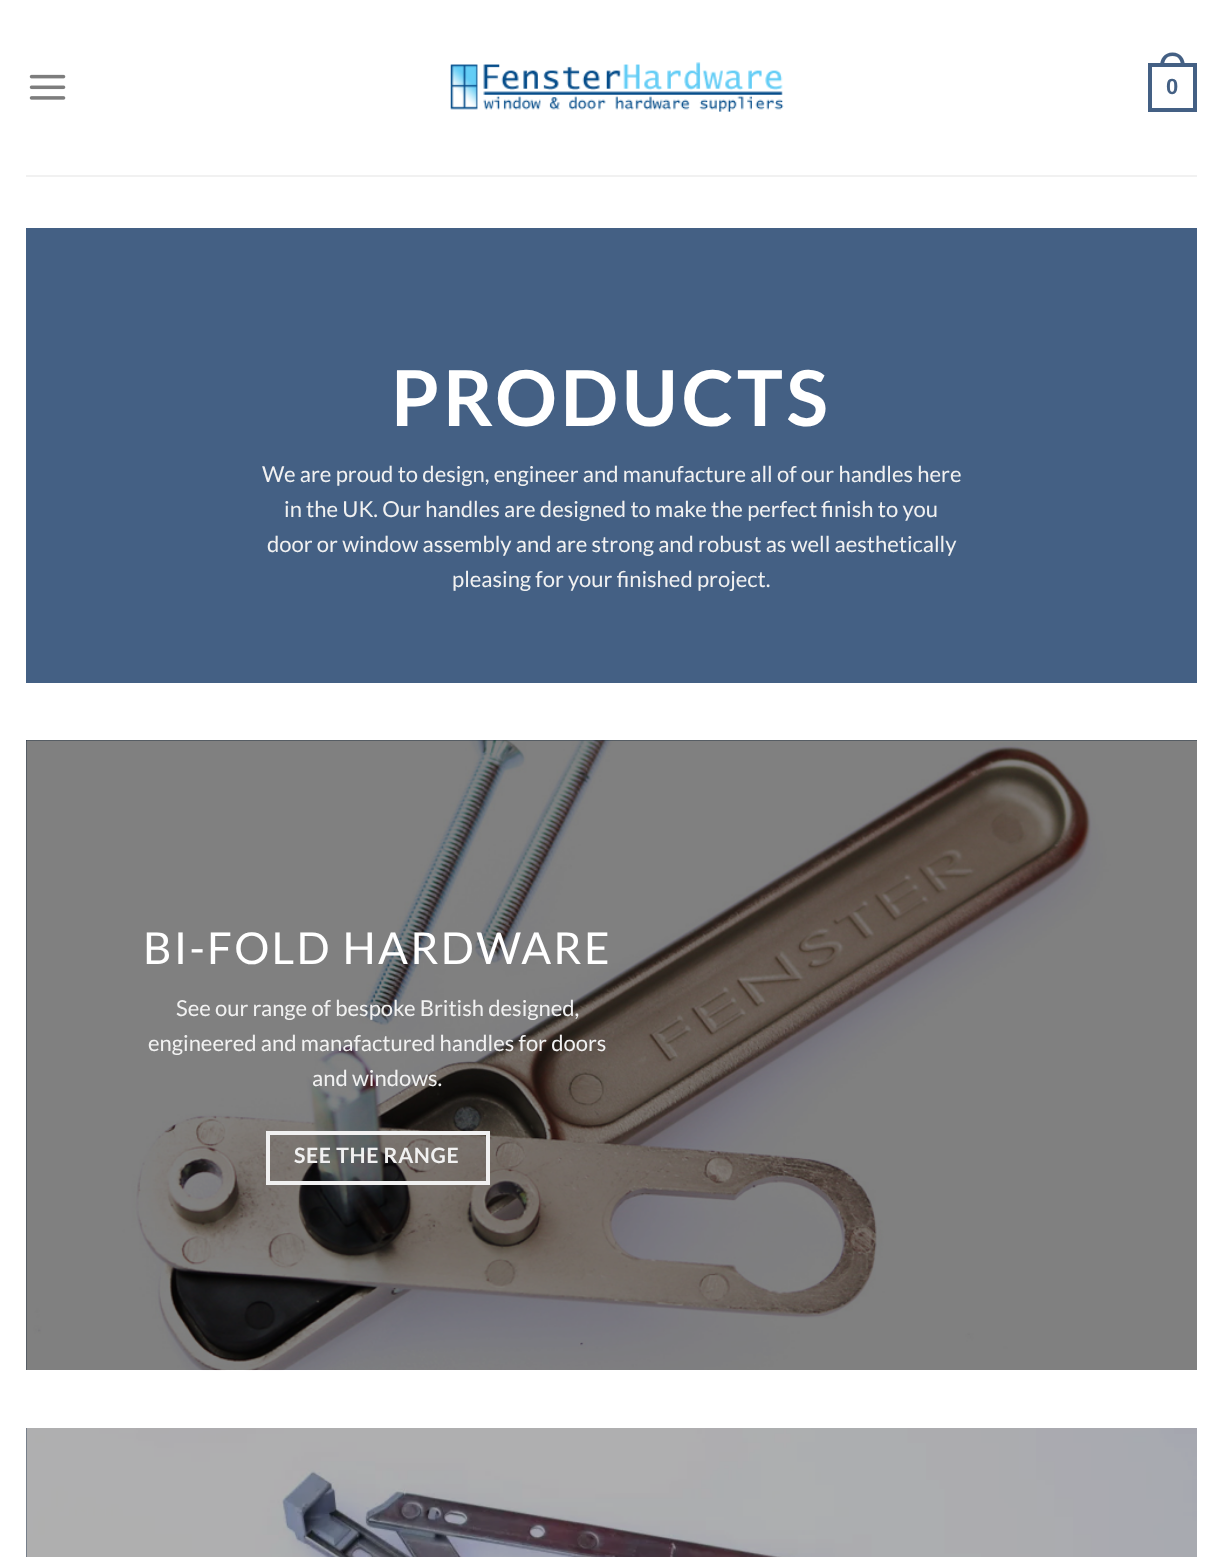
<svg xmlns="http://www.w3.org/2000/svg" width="1223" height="1557">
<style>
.a{font:bold 22px Liberation Sans;fill:#446084}
.b{font:bold 77px Lato;letter-spacing:3.75px;fill:#fff}
.c{font:22px Lato;fill:#f1f1f1}
.d{font:44px Lato;letter-spacing:2.25px;fill:#fff}
.e{font:bold 21.25px Lato;letter-spacing:0.6px;fill:#f1f1f1}
</style>
<rect width="100%" height="100%" fill="#fff"/>
<image href="1.png" x="29" y="74" width="37" height="26"/>
<image href="2.png" x="450" y="62" width="334" height="50"/>
<path fill="none" stroke="#446084" stroke-width="4" d="M1150 65h45v45H1150z"/>
<path fill="#446084" fill-rule="evenodd" d="M1172.5 52.5c8.5 0 12.5 6.5 12.5 14h-25c0-7.5 4-14 12.5-14zm0 3.5c6.5 0 8.5 5 8.5 10.5h-17c0-5.5 2-10.5 8.5-10.5z"/>
<path fill="#f1f1f1" d="M26 175h1171v2H26z"/>
<path fill="#446084" d="M26 228h1171v455H26z"/>
<path fill="#223042" d="M26 740h1171v630H26z"/>
<image href="3.png" x="26" y="740" width="1171" height="631"/>
<path fill="none" stroke="#f1f1f1" stroke-width="4" d="M268 1133h220v50H268z"/>
<path fill="#2f425b" d="M26 1428h1v129H26z"/>
<image href="4.png" x="26" y="1428" width="1171" height="129"/>
<text class="a" x="1166" y="94">0</text>
<text class="b" x="391" y="426">PRODUCTS</text>
<text class="c" x="262" y="482">We are proud to design, engineer and manufacture all of our handles here</text>
<text class="c" x="284" y="517">in the UK. Our handles are designed to make the perfect finish to you</text>
<text class="c" x="267" y="552">door or window assembly and are strong and robust as well aesthetically</text>
<text class="c" x="452" y="587">pleasing for your finished project.</text>
<text class="d" x="143" y="964">BI-FOLD HARDWARE</text>
<text class="c" x="176" y="1016">See our range of bespoke British designed,</text>
<text class="c" x="148" y="1051">engineered and manafactured handles for doors</text>
<text class="c" x="312" y="1086">and windows.</text>
<text class="e" x="294" y="1163">SEE THE RANGE</text>
</svg>
